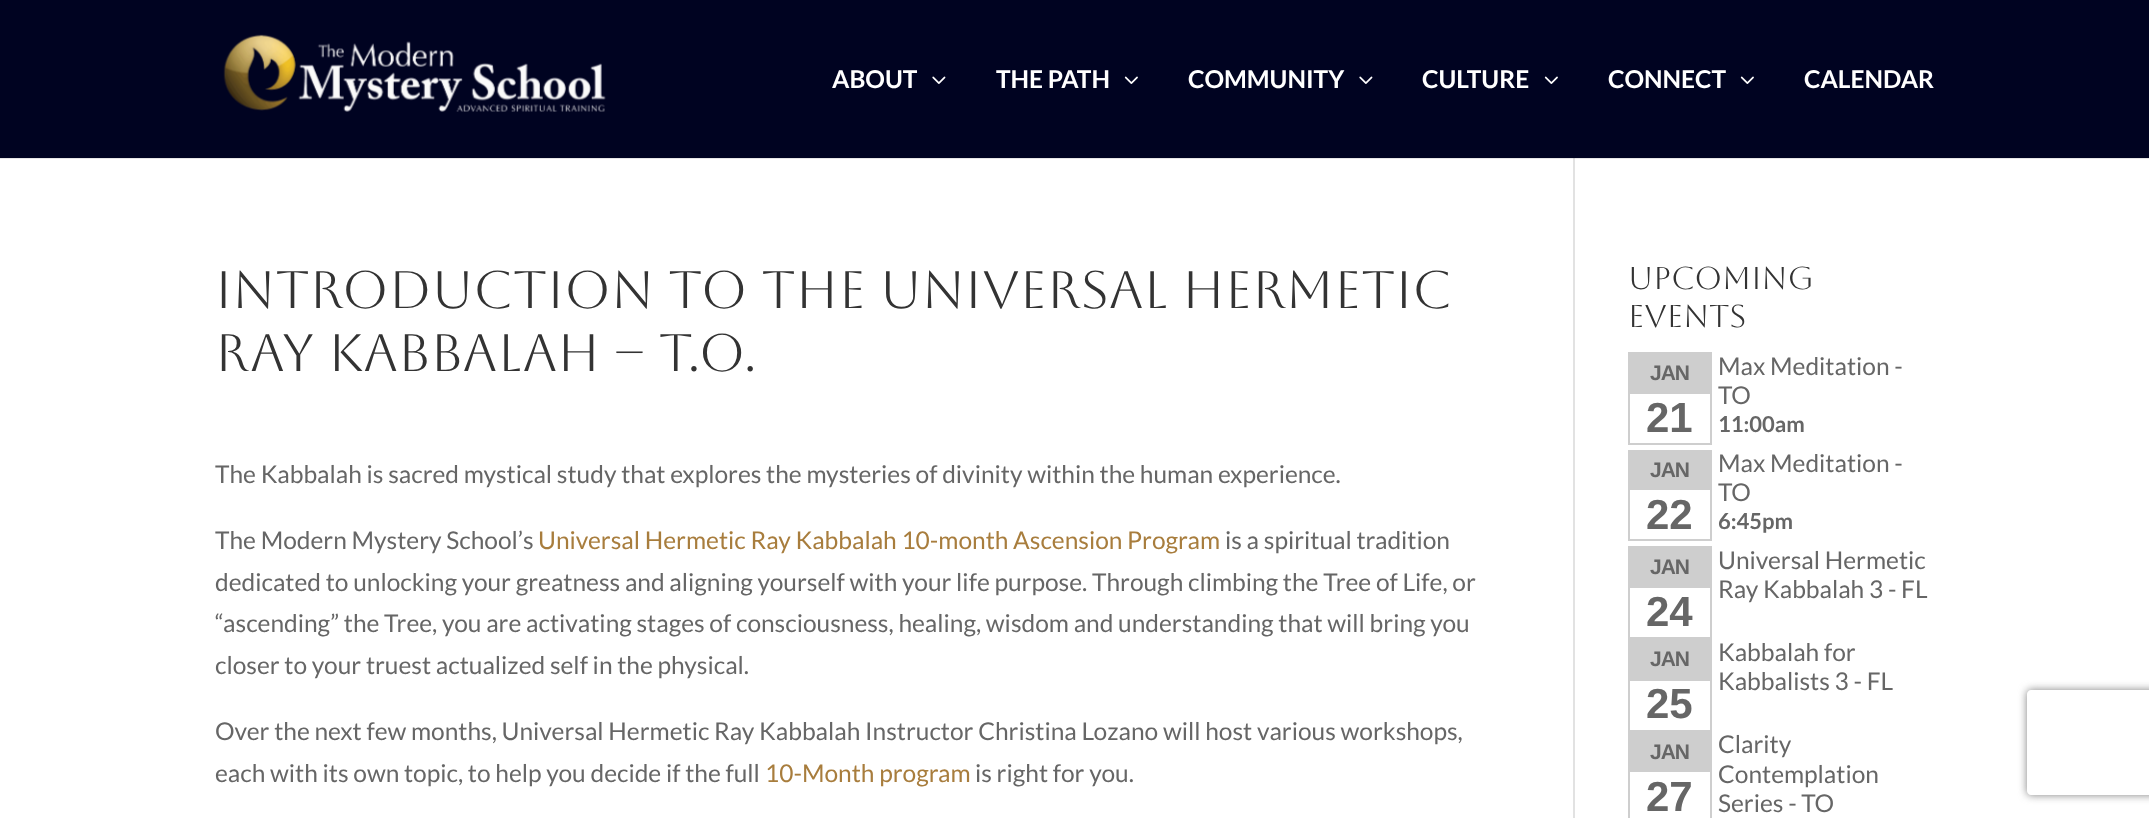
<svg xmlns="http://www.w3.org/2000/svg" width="2149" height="818">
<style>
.a{font:bold 24.5px Lato;fill:#fff}
.b{font:52.5px Aboreto;fill:#333}
.c{font:24.5px Lato;fill:#666}
.d{font:24.5px Lato;fill:#a87d3d}
.e{font:31.5px Aboreto;fill:#333}
.f{font:bold 21px Liberation Sans;letter-spacing:-1px;fill:#666}
.g{font:bold 42px Liberation Sans;fill:#666}
.h{font:bold 22px Lato;fill:#666}
</style>
<defs>
<clipPath id="clip1"><path d="M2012 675h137v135h-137zm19 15h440c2 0 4 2 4 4v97c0 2-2 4-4 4h-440c-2 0-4-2-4-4v-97c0-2 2-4 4-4z" clip-rule="evenodd"/></clipPath>
</defs>
<rect width="100%" height="100%" fill="#000321"/>
<image href="1.png" x="223" y="34" width="383" height="78"/>
<image href="2.png" x="932" y="76" width="14" height="8"/>
<image href="3.png" x="1124" y="76" width="14" height="8"/>
<image href="2.png" x="1359" y="76" width="14" height="8"/>
<image href="3.png" x="1544" y="76" width="14" height="8"/>
<image href="3.png" x="1740" y="76" width="14" height="8"/>
<path fill="#fff" d="M0 159h2149v659H0z"/>
<path fill="#e6e6e6" d="M0 158h2149v1H0z"/>
<path fill="#e2e2e2" d="M1573 158h2v660H1573z"/>
<path fill="#cbcbcb" d="M1573 158h2v1H1573z"/>
<path fill="none" stroke="#cecece" stroke-width="2" d="M1629 353h82v91H1629z"/>
<path fill="#cecece" d="M1630 354h80v40H1630z"/>
<path fill="none" stroke="#cecece" stroke-width="2" d="M1629 451h82v89H1629z"/>
<path fill="#cecece" d="M1630 452h80v38H1630z"/>
<path fill="none" stroke="#cecece" stroke-width="2" d="M1629 547h82v91H1629z"/>
<path fill="#cecece" d="M1630 548h80v40H1630z"/>
<path fill="none" stroke="#cecece" stroke-width="2" d="M1629 640h82v91H1629z"/>
<path fill="#cecece" d="M1630 641h80v40H1630z"/>
<path fill="none" stroke="#cecece" stroke-width="2" d="M1629 733h82v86H1629z"/>
<path fill="#cecece" d="M1630 734h80v38H1630z"/>
<g clip-path="url(#clip1)">
<rect fill="#808080" filter="blur(4.5px)" x="2027" y="690" width="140" height="105" rx="4"/>
</g>
<text class="a" x="832" y="88">ABOUT</text>
<text class="a" x="996" y="88">THE PATH</text>
<text class="a" x="1188" y="88">COMMUNITY</text>
<text class="a" x="1422" y="88">CULTURE</text>
<text class="a" x="1608" y="88">CONNECT</text>
<text class="a" x="1804" y="88">CALENDAR</text>
<text class="b" x="215" y="308">Introduction to the Universal Hermetic</text>
<text class="b" x="215" y="371">Ray Kabbalah – T.O.</text>
<text class="c" x="215" y="483">The Kabbalah is sacred mystical study that explores the mysteries of divinity within the human experience.</text>
<text class="c" x="215" y="549">The Modern Mystery School’s</text>
<text class="d" x="538" y="549">Universal Hermetic Ray Kabbalah 10-month Ascension Program</text>
<text class="c" x="1225" y="549">is a spiritual tradition</text>
<text class="c" x="215" y="591">dedicated to unlocking your greatness and aligning yourself with your life purpose. Through climbing the Tree of Life, or</text>
<text class="c" x="215" y="632">“ascending” the Tree, you are activating stages of consciousness, healing, wisdom and understanding that will bring you</text>
<text class="c" x="215" y="674">closer to your truest actualized self in the physical.</text>
<text class="c" x="215" y="740">Over the next few months, Universal Hermetic Ray Kabbalah Instructor Christina Lozano will host various workshops,</text>
<text class="c" x="215" y="782">each with its own topic, to help you decide if the full</text>
<text class="d" x="765" y="782">10-Month program</text>
<text class="c" x="975" y="782">is right for you.</text>
<text class="e" x="1628" y="289">Upcoming</text>
<text class="e" x="1628" y="327">Events</text>
<text class="f" x="1650" y="380">JAN</text>
<text class="g" x="1646" y="432">21</text>
<text class="c" x="1718" y="375">Max Meditation -</text>
<text class="c" x="1718" y="404">TO</text>
<text class="h" x="1718" y="432">11:00am</text>
<text class="f" x="1650" y="477">JAN</text>
<text class="g" x="1646" y="529">22</text>
<text class="c" x="1718" y="472">Max Meditation -</text>
<text class="c" x="1718" y="501">TO</text>
<text class="h" x="1718" y="529">6:45pm</text>
<text class="f" x="1650" y="574">JAN</text>
<text class="g" x="1646" y="626">24</text>
<text class="c" x="1718" y="569">Universal Hermetic</text>
<text class="c" x="1718" y="598">Ray Kabbalah 3 - FL</text>
<text class="f" x="1650" y="666">JAN</text>
<text class="g" x="1646" y="718">25</text>
<text class="c" x="1718" y="661">Kabbalah for</text>
<text class="c" x="1718" y="690">Kabbalists 3 - FL</text>
<text class="f" x="1650" y="759">JAN</text>
<text class="g" x="1646" y="811">27</text>
<text class="c" x="1718" y="753">Clarity</text>
<text class="c" x="1718" y="783">Contemplation</text>
<text class="c" x="1718" y="812">Series - TO</text>
</svg>
